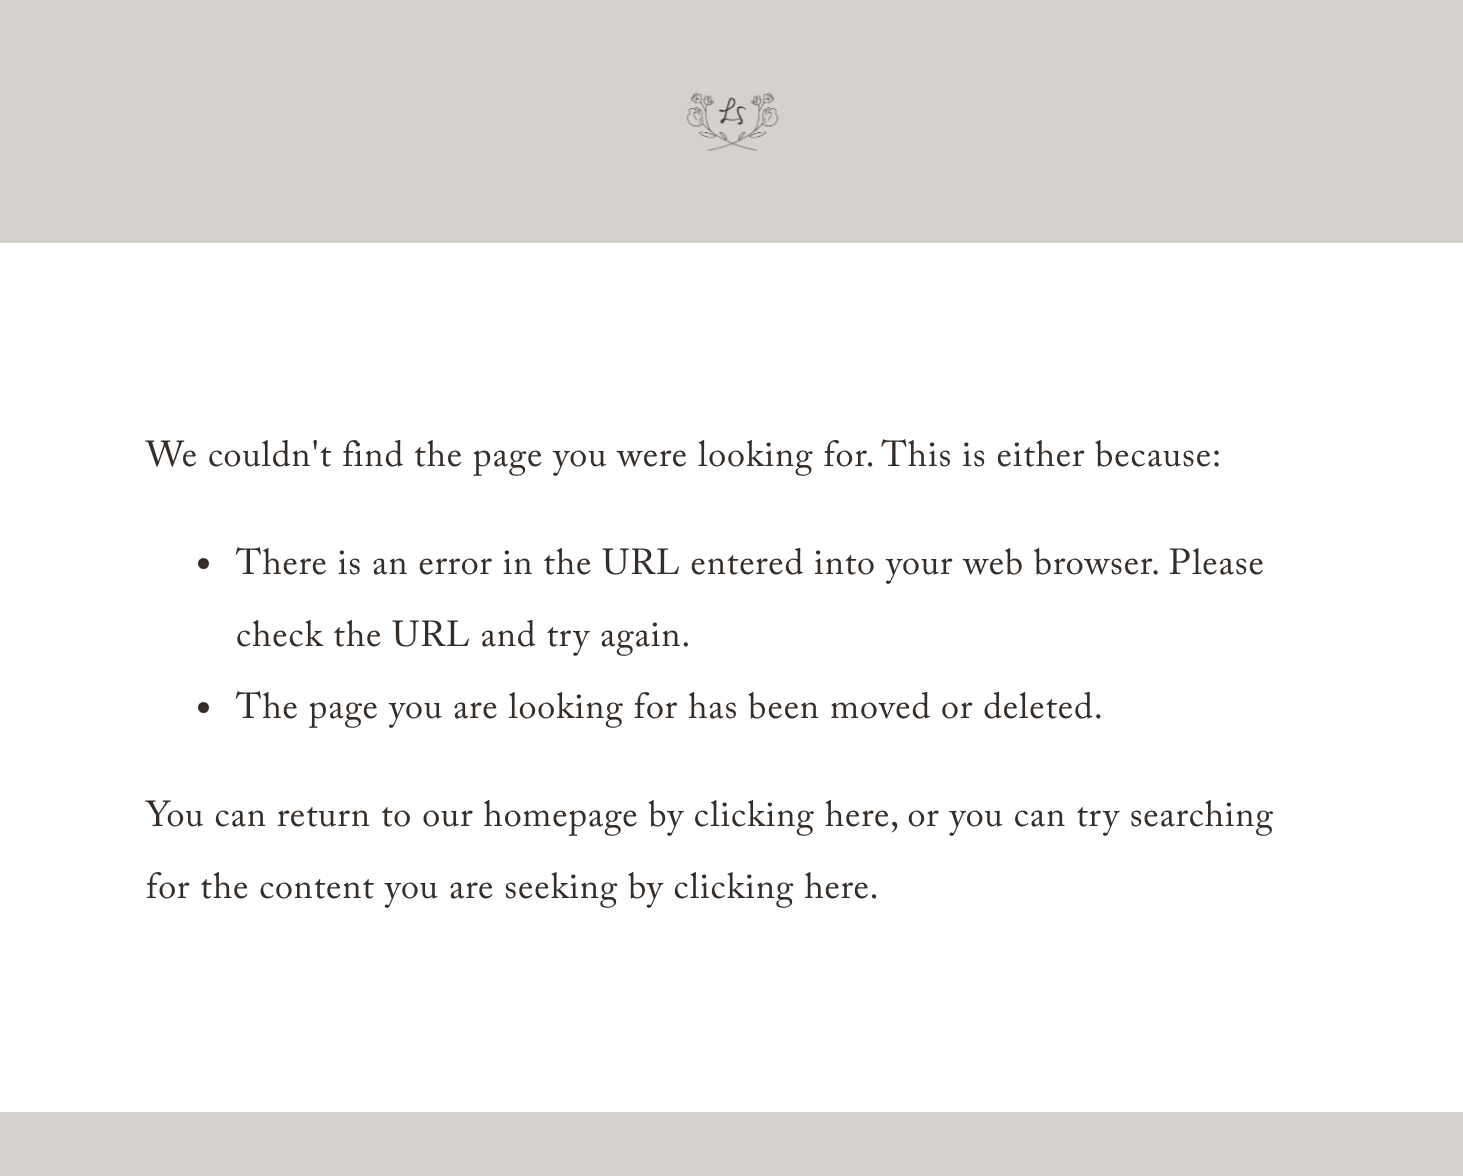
<svg xmlns="http://www.w3.org/2000/svg" width="1463" height="1176">
<style>
.a{font:36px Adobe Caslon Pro;letter-spacing:0.9px;fill:#352d28}
</style>
<rect width="100%" height="100%" fill="#fff"/>
<path fill="#d5d2cd" d="M0 0h1463v243H0z"/>
<image href="1.png" x="686" y="92" width="93" height="59"/>
<circle fill="#352d28" cx="203.5" cy="563.5" r="5.5"/>
<circle fill="#352d28" cx="203.5" cy="707.5" r="5.5"/>
<path fill="#d5d2cd" d="M0 1112h1463v64H0z"/>
<text class="a" x="146" y="466">We couldn't find the page you were looking for. This is either because:</text>
<text class="a" x="236" y="574">There is an error in the URL entered into your web browser. Please</text>
<text class="a" x="236" y="646">check the URL and try again.</text>
<text class="a" x="236" y="718">The page you are looking for has been moved or deleted.</text>
<text class="a" x="146" y="826">You can return to our homepage by clicking here, or you can try searching</text>
<text class="a" x="146" y="898">for the content you are seeking by clicking here.</text>
</svg>
